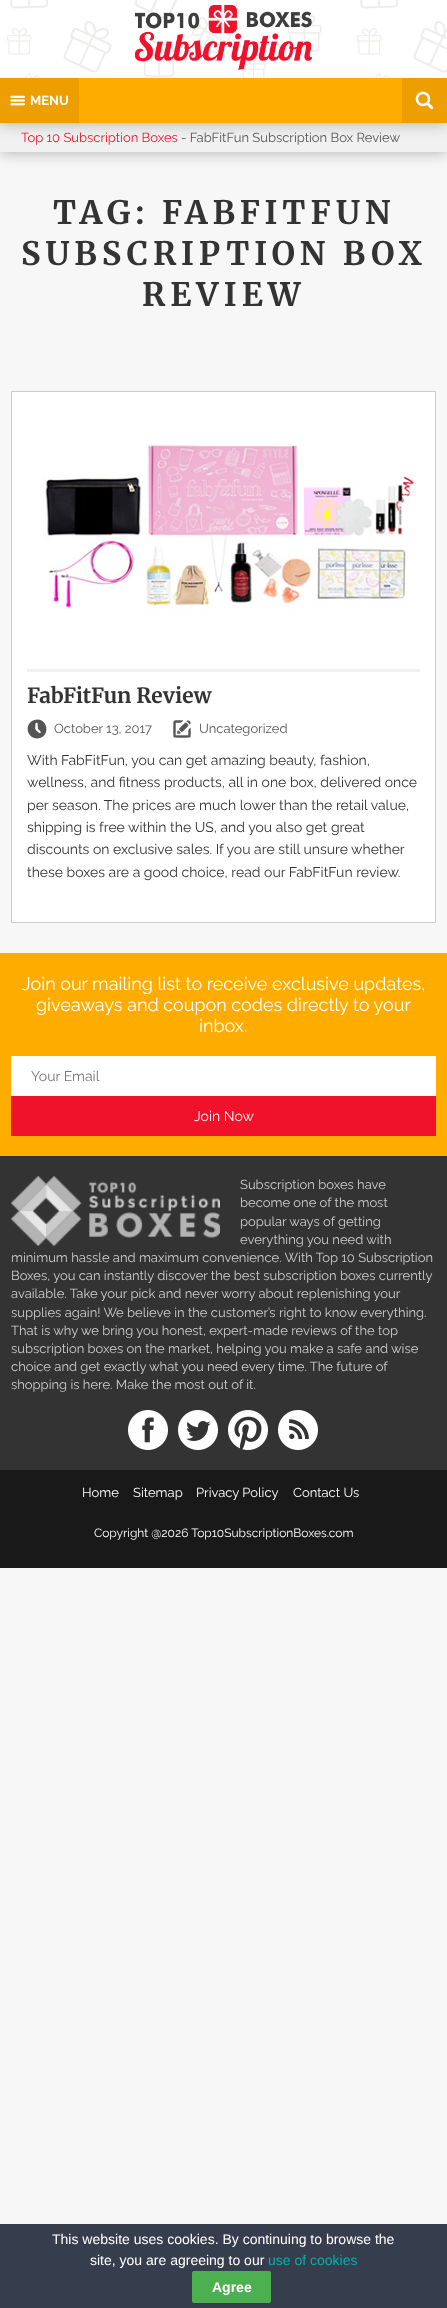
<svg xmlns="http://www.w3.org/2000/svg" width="447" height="2308">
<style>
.a{font:bold 13px Raleway;fill:#fff}
.b{font:13px Raleway;fill:#f0112b}
.c{font:13px Raleway;fill:#555}
.d{font:bold 32.25px Merriweather;letter-spacing:5px;fill:#333}
.e{font:bold 21px Merriweather;fill:#333}
.f{font:14px Raleway;fill:#333}
.g{font:18px Raleway;fill:#fff}
.h{font:14px Raleway;fill:#757575}
.i{font:14px Raleway;fill:#fff}
.j{font:13px Raleway;fill:#ccc}
.k{font:13px Raleway;fill:#fff}
.l{font:12px Raleway;fill:#fff}
.m{font:14px Liberation Sans;fill:#fff}
.n{font:14px Liberation Sans;fill:#00b1af}
.o{font:bold 14px Liberation Sans;fill:#fff}
</style>
<rect width="100%" height="100%" fill="#f7f7f7"/>
<path fill="#919191bf" filter="blur(7.5px)" d="M0 123h447v29H0z"/>
<path fill="#f1f1f1" d="M0 123h447v29H0z"/>
<path fill="#919191bf" filter="blur(7.5px)" d="M0 0h447v123H0z"/>
<path fill="#fff" d="M0 0h447v78H0z"/>
<image href="1.png" x="7" y="0" width="440" height="78"/>
<image href="2.png" x="135" y="5" width="177" height="65"/>
<path fill="#ffac00" d="M79 78h323v45H79z"/>
<path fill="#ed9e00" d="M0 78h79v45H0z"/>
<image href="3.png" x="10" y="95" width="15" height="11"/>
<path fill="#ed9e00" d="M402 78h45v45H402z"/>
<image href="4.png" x="415" y="91" width="19" height="19"/>
<path fill="#fff" stroke="#ccc" d="M11.5 391.5h424v531H11.5z"/>
<path fill="#f1f1f1" d="M27 669h393v3H27z"/>
<image href="5.png" x="27" y="407" width="393" height="262"/>
<image href="6.png" x="27" y="719" width="20" height="20"/>
<image href="7.png" x="173" y="720" width="18" height="18"/>
<path fill="#ffac00" d="M0 953h447v203H0z"/>
<path fill="#fff" d="M11 1056h425v40H11z"/>
<path fill="#f0112b" d="M11 1096h425v40H11z"/>
<path fill="#333" d="M0 1156h447v314H0z"/>
<image href="8.png" x="11" y="1176" width="209" height="70"/>
<image href="9.png" x="128" y="1410" width="40" height="40"/>
<image href="10.png" x="178" y="1410" width="40" height="40"/>
<image href="11.png" x="228" y="1410" width="40" height="40"/>
<image href="12.png" x="278" y="1410" width="40" height="40"/>
<path fill="#191919" d="M0 1470h447v98H0z"/>
<path fill="#363d4d" d="M0 2224h447v84H0z"/>
<rect fill="#4caf50" x="192" y="2271" width="79" height="32" rx="2"/>
<text class="a" x="30" y="105">MENU</text>
<text class="b" x="21" y="142">Top 10 Subscription Boxes</text>
<text class="c" x="181" y="142">- FabFitFun Subscription Box Review</text>
<text class="d" x="53" y="224">TAG: FABFITFUN</text>
<text class="d" x="21" y="265">SUBSCRIPTION BOX</text>
<text class="d" x="142" y="306">REVIEW</text>
<text class="e" x="27" y="703">FabFitFun Review</text>
<text class="c" x="54" y="733">October 13, 2017</text>
<text class="c" x="199" y="733">Uncategorized</text>
<text class="f" x="27" y="765">With FabFitFun, you can get amazing beauty, fashion,</text>
<text class="f" x="27" y="787">wellness, and fitness products, all in one box, delivered once</text>
<text class="f" x="27" y="810">per season. The prices are much lower than the retail value,</text>
<text class="f" x="27" y="832">shipping is free within the US, and you also get great</text>
<text class="f" x="27" y="854">discounts on exclusive sales. If you are still unsure whether</text>
<text class="f" x="27" y="877">these boxes are a good choice, read our FabFitFun review.</text>
<text class="g" x="22" y="990">Join our mailing list to receive exclusive updates,</text>
<text class="g" x="36" y="1011">giveaways and coupon codes directly to your</text>
<text class="g" x="199" y="1032">inbox.</text>
<text class="h" x="31" y="1081">Your Email</text>
<text class="i" x="194" y="1121">Join Now</text>
<text class="j" x="240" y="1189">Subscription boxes have</text>
<text class="j" x="240" y="1207">become one of the most</text>
<text class="j" x="240" y="1226">popular ways of getting</text>
<text class="j" x="240" y="1244">everything you need with</text>
<text class="j" x="11" y="1262">minimum hassle and maximum convenience. With Top 10 Subscription</text>
<text class="j" x="11" y="1280">Boxes, you can instantly discover the best subscription boxes currently</text>
<text class="j" x="11" y="1298">available. Take your pick and never worry about replenishing your</text>
<text class="j" x="11" y="1317">supplies again! We believe in the customer’s right to know everything.</text>
<text class="j" x="11" y="1335">That is why we bring you honest, expert-made reviews of the top</text>
<text class="j" x="11" y="1353">subscription boxes on the market, helping you make a safe and wise</text>
<text class="j" x="11" y="1371">choice and get exactly what you need every time. The future of</text>
<text class="j" x="11" y="1389">shopping is here. Make the most out of it.</text>
<text class="k" x="82" y="1497">Home</text>
<text class="k" x="133" y="1497">Sitemap</text>
<text class="k" x="196" y="1497">Privacy Policy</text>
<text class="k" x="293" y="1497">Contact Us</text>
<text class="l" x="94" y="1537">Copyright @2026 Top10SubscriptionBoxes.com</text>
<text class="m" x="52" y="2244">This website uses cookies. By continuing to browse the</text>
<text class="m" x="90" y="2265">site, you are agreeing to our</text>
<text class="n" x="268" y="2265">use of cookies</text>
<text class="o" x="212" y="2292">Agree</text>
</svg>
